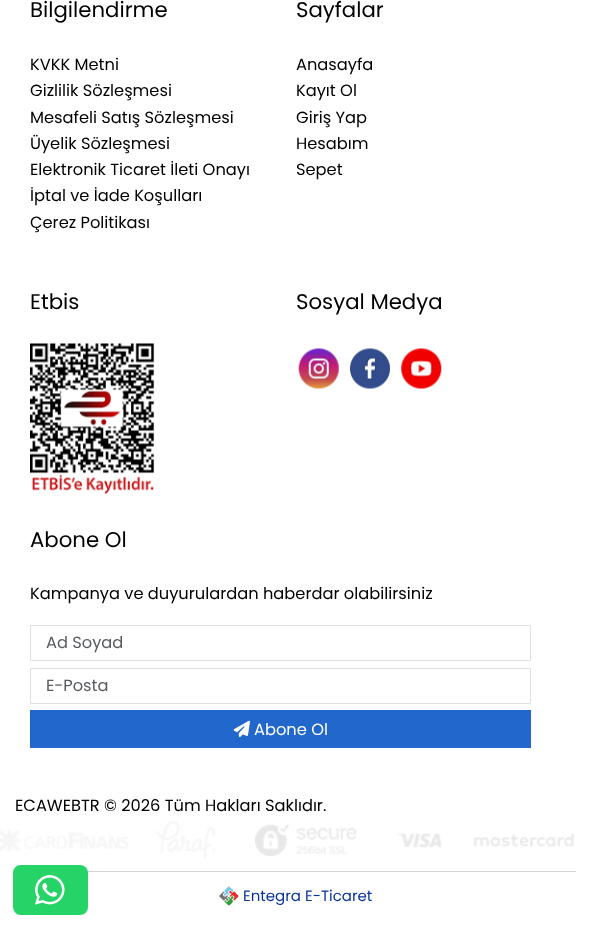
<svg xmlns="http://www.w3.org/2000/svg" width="591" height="927">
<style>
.a{font:21.25px Poppins;fill:#000}
.b{font:16.25px Poppins;fill:#000}
.c{font:16.25px Poppins;fill:#595c5f}
.d{font:16.25px Poppins;fill:#fff}
.e{font:15px Poppins;fill:#093595}
</style>
<rect width="100%" height="100%" fill="#fff"/>
<image href="1.png" x="30" y="343" width="125" height="151"/>
<image href="2.png" x="298" y="348" width="41" height="41"/>
<image href="3.png" x="350" y="348" width="40" height="41"/>
<image href="4.png" x="401" y="348" width="41" height="41"/>
<path fill="none" stroke="#dee2e6" d="M30.5 625.5h500v35H30.5z"/>
<path fill="none" stroke="#dee2e6" d="M30.5 668.5h500v35H30.5z"/>
<path fill="#2167cc" d="M30 710h501v38H30z"/>
<image href="5.png" x="233" y="720" width="17" height="17"/>
<image href="6.png" x="0" y="821" width="576" height="37"/>
<path fill="#d3d3d3" d="M87 871h489v1H87z"/>
<rect fill="#25d366" x="13" y="865" width="75" height="50" rx="8"/>
<image href="7.png" x="35" y="875" width="30" height="30"/>
<path fill="#767271" d="M219 896l4.5 4.5c1 .5 1.5-2.5 2.5-1.5l.5 1.5c.5 1 2.5 0 2-1c-.5-1.5-1.5-1-2-1.5l1.5-2l-.5-.5c-.5-1-.5-.5-1 .5c-.5 .5-2 1-3 0c-1-1-.5-3 1-3.5c.5-.5-1-1-1.5-.5z"/>
<path fill="#e12e2e" d="M232.5 895.5c1.5 0 2.5 1.5 1.5 3c-.5 1.5-1.5 .5-.5 1.5l1 .5l4-4c0-1-.5-1.5-1-1.5l-3-3.5c-1 0-2 1.5-2.5 1.5c-.5-.5 0-.5-.5-1.5l-.5-.5c-2-1-2.5 3-.5 2.5c2.5-.5-.5 2-1 2.5l.5 .5c1 1.5 0-1 2.5-1z"/>
<path fill="#73c6f0" d="M228.5 886.5l-4 4c-.5 1.5 2.5 1.5 1 2.5l-1 .5c-1.5 1-.5 2.5 1 2c1 0 .5-1.5 1-2l2.5 1.5l.5-.5c.5-.5 0 0-.5-.5c-1-1-1-2.5-.5-3c1.5-1.5 3-1 3.5 .5c.5 1 1.5-1 1-1.5l-4-3.5z"/>
<path fill="#2e9e39" d="M229.5 899.5c0-2-2.5-1-1.5-2.5h1c.5 0 2.5 3 2 1c-.5-2.5 3.5-2 2.5 0c-.5 1-1.5 .5-2 1l1.5 2c.5 .5-3.5 5-4.5 4.5l-4-4v-1c1.5-1 .5 0 1.5 1c1.5 1 3-.5 3.5-2z"/>
<text class="a" x="30" y="17">Bilgilendirme</text>
<text class="b" x="30" y="70">KVKK Metni</text>
<text class="b" x="30" y="96">Gizlilik Sözleşmesi</text>
<text class="b" x="30" y="123">Mesafeli Satış Sözleşmesi</text>
<text class="b" x="30" y="149">Üyelik Sözleşmesi</text>
<text class="b" x="30" y="175">Elektronik Ticaret İleti Onayı</text>
<text class="b" x="30" y="201">İptal ve İade Koşulları</text>
<text class="b" x="30" y="228">Çerez Politikası</text>
<text class="a" x="296" y="17">Sayfalar</text>
<text class="b" x="296" y="70">Anasayfa</text>
<text class="b" x="296" y="96">Kayıt Ol</text>
<text class="b" x="296" y="123">Giriş Yap</text>
<text class="b" x="296" y="149">Hesabım</text>
<text class="b" x="296" y="175">Sepet</text>
<text class="a" x="30" y="309">Etbis</text>
<text class="a" x="296" y="309">Sosyal Medya</text>
<text class="a" x="30" y="547">Abone Ol</text>
<text class="b" x="30" y="599">Kampanya ve duyurulardan haberdar olabilirsiniz</text>
<text class="c" x="46" y="648">Ad Soyad</text>
<text class="c" x="46" y="691">E-Posta</text>
<text class="d" x="254" y="735">Abone Ol</text>
<text class="b" x="15" y="811">ECAWEBTR © 2026 Tüm Hakları Saklıdır.</text>
<text class="e" x="243" y="901">Entegra E-Ticaret</text>
</svg>
